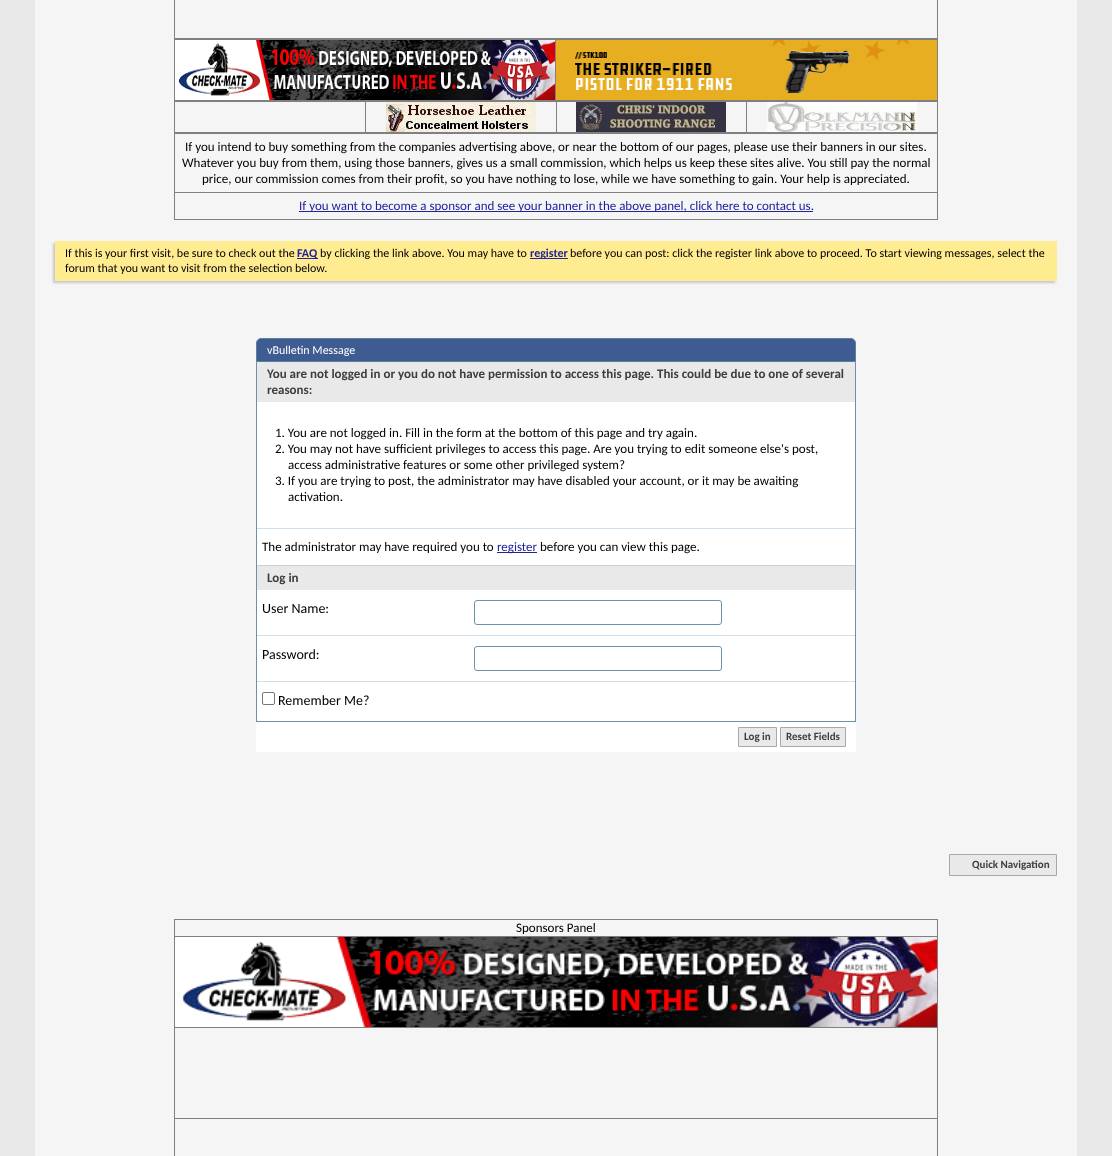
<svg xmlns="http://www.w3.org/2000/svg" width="1112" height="1156">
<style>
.a{font:13px Carlito;fill:#000}
.b{font:13px Carlito;fill:#22229c}
.c{font:12px Carlito;fill:#000}
.d{font:bold 12px Carlito;fill:#22229c}
.e{font:12px Carlito;fill:#fff}
.f{font:bold 13px Carlito;fill:#3e3e3e}
.g{font:14px Carlito;fill:#000}
.h{font:bold 11px Carlito;fill:#3e3e3e}
</style>
<rect width="100%" height="100%" fill="#e9e9e9"/>
<path fill="#f5f5f5" d="M35 0h1042v1156H35z"/>
<path fill="#808080" d="M937 0h1v39H937z"/>
<path fill="#808080" d="M174 38h764v2H174z"/>
<path fill="#808080" d="M174 0h1v39H174z"/>
<path fill="#808080" d="M937 39h1v62H937z"/>
<path fill="#808080" d="M174 100h764v2H174z"/>
<path fill="#808080" d="M174 39h1v62H174z"/>
<image href="1.png" x="175" y="40" width="380" height="60"/>
<path fill="#808080" d="M555 39h1v62H555z"/>
<image href="2.png" x="556" y="40" width="381" height="60"/>
<path fill="#808080" d="M937 101h1v32H937z"/>
<path fill="#808080" d="M174 132h764v2H174z"/>
<path fill="#808080" d="M174 101h1v32H174z"/>
<path fill="#808080" d="M365 101h1v32H365z"/>
<image href="3.png" x="386" y="102" width="150" height="30"/>
<path fill="#808080" d="M556 101h1v32H556z"/>
<image href="4.png" x="576" y="102" width="150" height="30"/>
<path fill="#808080" d="M746 101h1v32H746z"/>
<image href="5.png" x="767" y="102" width="150" height="30"/>
<path fill="#808080" d="M937 133h1v87H937z"/>
<path fill="#808080" d="M174 219h764v1H174z"/>
<path fill="#808080" d="M174 133h1v87H174z"/>
<path fill="#808080" d="M174 192h764v1H174z"/>
<path fill="#22229c" d="M299 211h514v1H299z"/>
<path fill="#c8c8c8" filter="blur(1px)" d="M53 243h1002v40H53z"/>
<path fill="#ffeb90" d="M55 241h1002v40H55z"/>
<path fill="#22229c" d="M297 258h21v1H297z"/>
<path fill="#22229c" d="M530 258h38v1H530z"/>
<path fill="#3e5c92" stroke="#5a7f97" d="M261 338.5h590c2.5 0 4.5 2 4.5 4.5v18.5h-599v-18.5c0-2.5 2-4.5 4.5-4.5z"/>
<path fill="#6b91ab" d="M855 362h1v360H855z"/>
<path fill="#6b91ab" d="M256 721h600v1H256z"/>
<path fill="#6b91ab" d="M256 362h1v360H256z"/>
<path fill="#e9e9e9" d="M257 362h598v40H257z"/>
<path fill="#fff" d="M257 402h598v126H257z"/>
<path fill="#fff" d="M257 529h598v36H257z"/>
<path fill="#cedfeb" d="M257 528h598v1H257z"/>
<path fill="#22229c" d="M497 552h40v1H497z"/>
<path fill="#e9e9e9" d="M257 566h598v24H257z"/>
<path fill="#cecece" d="M257 565h598v1H257z"/>
<path fill="#fff" d="M257 590h598v45H257z"/>
<rect fill="none" stroke="#6b91ab" x="474.5" y="600.5" width="247" height="24" rx="2.5"/>
<path fill="#fff" d="M257 636h598v45H257z"/>
<path fill="#cedfeb" d="M257 635h598v1H257z"/>
<rect fill="none" stroke="#6b91ab" x="474.5" y="646.5" width="247" height="24" rx="2.5"/>
<path fill="#fff" d="M257 682h598v39H257z"/>
<path fill="#cedfeb" d="M257 681h598v1H257z"/>
<rect fill="none" stroke="#767676" x="262.5" y="692.5" width="12" height="12" rx="1.5"/>
<path fill="#fff" d="M256 722h600v30H256z"/>
<path fill="#e9e9e9" stroke="#a8a8a8" d="M738.5 727.5h38v19H738.5z"/>
<path fill="#e9e9e9" stroke="#a8a8a8" d="M780.5 727.5h65v19H780.5z"/>
<path fill="#e9e9e9" stroke="#a8a8a8" d="M949.5 854.5h107v21H949.5z"/>
<path fill="#808080" d="M174 919h764v1H174z"/>
<path fill="#808080" d="M937 919h1v237H937z"/>
<path fill="#808080" d="M174 919h1v237H174z"/>
<path fill="#808080" d="M174 936h764v1H174z"/>
<image href="6.png" x="175" y="937" width="762" height="90"/>
<path fill="#808080" d="M174 1027h764v1H174z"/>
<path fill="#808080" d="M174 1118h764v1H174z"/>
<text class="a" x="185" y="151">If you intend to buy something from the companies advertising above, or near the bottom of our pages, please use their banners in our sites.</text>
<text class="a" x="182" y="167">Whatever you buy from them, using those banners, gives us a small commission, which helps us keep these sites alive. You still pay the normal</text>
<text class="a" x="202" y="183">price, our commission comes from their profit, so you have nothing to lose, while we have something to gain. Your help is appreciated.</text>
<text class="b" x="299" y="210">If you want to become a sponsor and see your banner in the above panel, click here to contact us.</text>
<text class="c" x="65" y="257">If this is your first visit, be sure to check out the</text>
<text class="d" x="297" y="257">FAQ</text>
<text class="c" x="320" y="257">by clicking the link above. You may have to</text>
<text class="d" x="530" y="257">register</text>
<text class="c" x="570" y="257">before you can post: click the register link above to proceed. To start viewing messages, select the</text>
<text class="c" x="65" y="272">forum that you want to visit from the selection below.</text>
<text class="e" x="267" y="354">vBulletin Message</text>
<text class="f" x="267" y="378">You are not logged in or you do not have permission to access this page. This could be due to one of several</text>
<text class="f" x="267" y="394">reasons:</text>
<text class="a" x="275" y="437">1. You are not logged in. Fill in the form at the bottom of this page and try again.</text>
<text class="a" x="275" y="453">2. You may not have sufficient privileges to access this page. Are you trying to edit someone else's post,</text>
<text class="a" x="288" y="469">access administrative features or some other privileged system?</text>
<text class="a" x="275" y="485">3. If you are trying to post, the administrator may have disabled your account, or it may be awaiting</text>
<text class="a" x="288" y="501">activation.</text>
<text class="a" x="262" y="551">The administrator may have required you to</text>
<text class="b" x="497" y="551">register</text>
<text class="a" x="540" y="551">before you can view this page.</text>
<text class="f" x="267" y="582">Log in</text>
<text class="g" x="262" y="613">User Name:</text>
<text class="g" x="262" y="659">Password:</text>
<text class="g" x="278" y="705">Remember Me?</text>
<text class="h" x="744" y="740">Log in</text>
<text class="h" x="786" y="740">Reset Fields</text>
<text class="h" x="972" y="868">Quick Navigation</text>
<text class="a" x="516" y="932">Sponsors Panel</text>
</svg>
